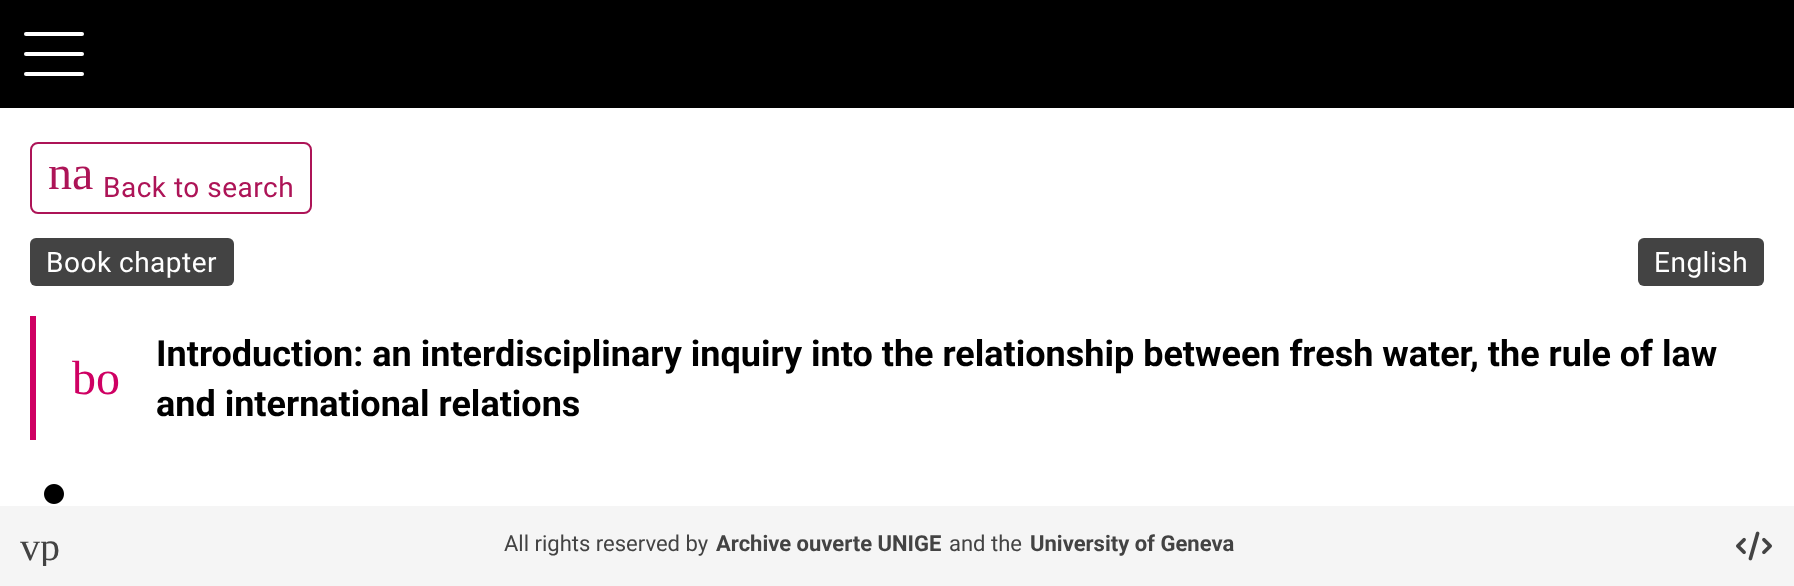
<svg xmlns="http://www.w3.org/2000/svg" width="1794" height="586">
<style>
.a{font:48px Liberation Serif;fill:#ad1457}
.b{font:28px Roboto;letter-spacing:0.5px;fill:#ad1457}
.c{font:28px Roboto;letter-spacing:0.5px;fill:#fff}
.d{font:48px Liberation Serif;fill:#cf0063}
.e{font:bold 36px Roboto;fill:#000}
.f{font:40px Liberation Serif;fill:#434343}
.g{font:22px Roboto;fill:#434343}
.h{font:bold 22px Roboto;fill:#434343}
</style>
<defs>
<clipPath id="clip1"><path d="M20 526h40v40H20z"/></clipPath>
</defs>
<rect width="100%" height="100%" fill="#fff"/>
<path fill="#000" d="M0 0h1794v108H0z"/>
<rect fill="#fff" x="24" y="32" width="60" height="4" rx="2"/>
<rect fill="#fff" x="24" y="52" width="60" height="4" rx="2"/>
<rect fill="#fff" x="24" y="72" width="60" height="4" rx="2"/>
<rect fill="none" stroke="#ad1457" stroke-width="2" x="31" y="143" width="280" height="70" rx="7"/>
<rect fill="#434343" x="30" y="238" width="204" height="48" rx="6"/>
<rect fill="#434343" x="1638" y="238" width="126" height="48" rx="6"/>
<path fill="#cf0063" d="M30 316h6v124H30z"/>
<image href="1.png" x="44" y="484" width="20" height="20"/>
<path fill="#f5f5f5" d="M0 506h1794v80H0z"/>
<image href="2.png" x="1736" y="531" width="36" height="30"/>
<text class="a" x="48" y="189">na</text>
<text class="b" x="103" y="197">Back to search</text>
<text class="c" x="46" y="272">Book chapter</text>
<text class="c" x="1654" y="272">English</text>
<text class="d" x="72" y="394">bo</text>
<text class="e" x="156" y="366">Introduction: an interdisciplinary inquiry into the relationship between fresh water, the rule of law</text>
<text class="e" x="156" y="416">and international relations</text>
<g clip-path="url(#clip1)">
<text class="f" x="20" y="560">vp</text>
</g>
<text class="g" x="504" y="551">All rights reserved by</text>
<text class="h" x="716" y="551">Archive ouverte UNIGE</text>
<text class="g" x="949" y="551">and the</text>
<text class="h" x="1030" y="551">University of Geneva</text>
</svg>
